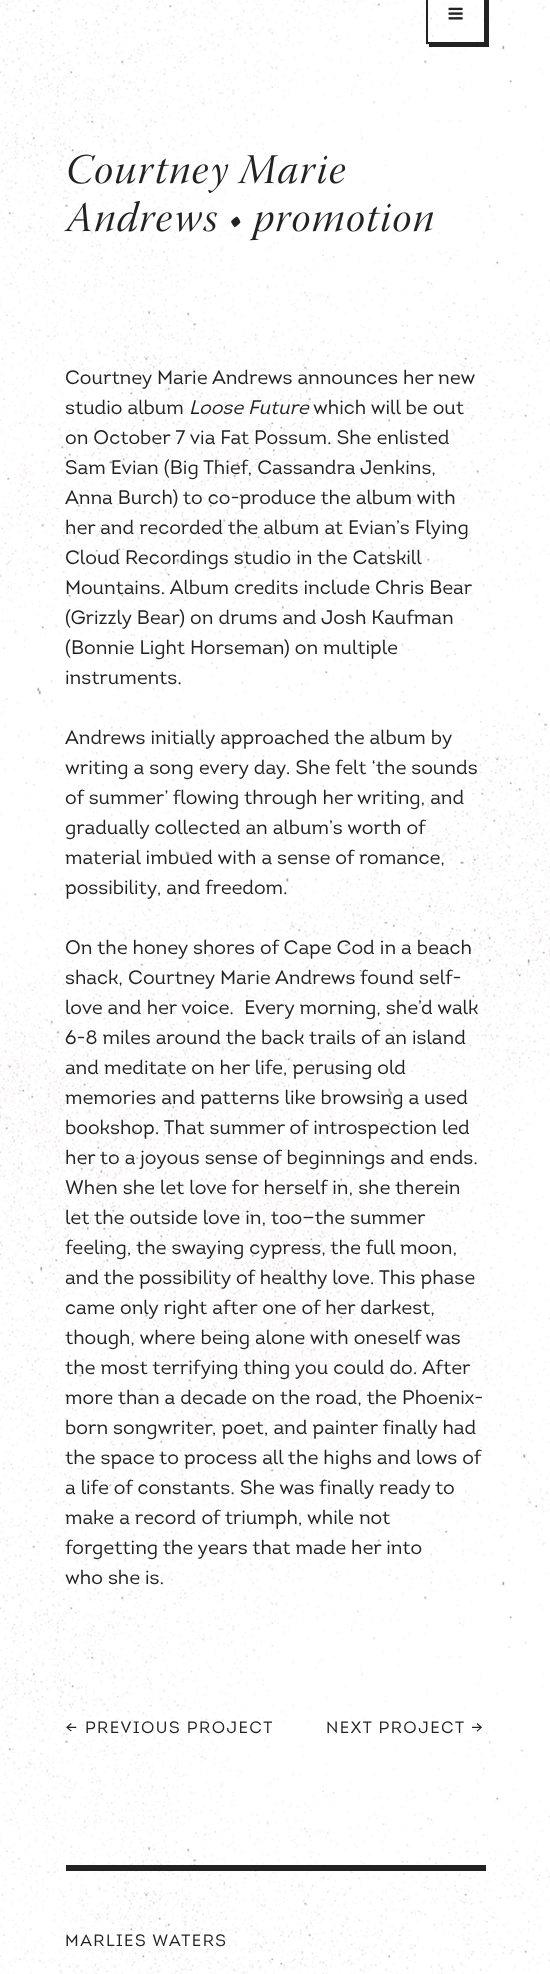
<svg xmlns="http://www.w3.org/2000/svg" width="550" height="1974">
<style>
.a{font:19.5px 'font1';fill:#222}
.b{font:italic 19.5px 'font1';fill:#222}
.c{font:16.5px 'font1';letter-spacing:1.5px;fill:#222}
</style>
<rect width="100%" height="100%" fill="#fff"/>
<image href="1.png" x="0" y="0" width="550" height="1974"/>
<path fill="#222" d="M429 44v3h60v-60h-3v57z"/>
<path fill="none" stroke="#222" stroke-width="2" d="M427 -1h58v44H427z"/>
<image href="2.png" x="448" y="7" width="15" height="13"/>
<image href="3.png" x="68" y="154" width="278" height="40"/>
<image href="4.png" x="63" y="201" width="370" height="40"/>
<path fill="#222" d="M66 1865h420v6H66z"/>
<text class="a" x="65" y="384">Courtney Marie Andrews announces her new</text>
<text class="a" x="65" y="414">studio album</text>
<text class="b" x="189" y="414">Loose Future</text>
<text class="a" x="313" y="414">which will be out</text>
<text class="a" x="65" y="444">on October 7 via Fat Possum. She enlisted</text>
<text class="a" x="65" y="474">Sam Evian (Big Thief, Cassandra Jenkins,</text>
<text class="a" x="65" y="504">Anna Burch) to co-produce the album with</text>
<text class="a" x="65" y="534">her and recorded the album at Evian’s Flying</text>
<text class="a" x="65" y="564">Cloud Recordings studio in the Catskill</text>
<text class="a" x="65" y="594">Mountains. Album credits include Chris Bear</text>
<text class="a" x="65" y="624">(Grizzly Bear) on drums and Josh Kaufman</text>
<text class="a" x="65" y="654">(Bonnie Light Horseman) on multiple</text>
<text class="a" x="65" y="684">instruments.</text>
<text class="a" x="65" y="744">Andrews initially approached the album by</text>
<text class="a" x="65" y="774">writing a song every day. She felt ‘the sounds</text>
<text class="a" x="65" y="804">of summer’ flowing through her writing, and</text>
<text class="a" x="65" y="834">gradually collected an album’s worth of</text>
<text class="a" x="65" y="864">material imbued with a sense of romance,</text>
<text class="a" x="65" y="894">possibility, and freedom.</text>
<text class="a" x="65" y="954">On the honey shores of Cape Cod in a beach</text>
<text class="a" x="65" y="984">shack, Courtney Marie Andrews found self-</text>
<text class="a" xml:space="preserve" x="65" y="1014">love and her voice.  Every morning, she’d walk</text>
<text class="a" x="65" y="1044">6-8 miles around the back trails of an island</text>
<text class="a" x="65" y="1074">and meditate on her life, perusing old</text>
<text class="a" x="65" y="1104">memories and patterns like browsing a used</text>
<text class="a" x="65" y="1134">bookshop. That summer of introspection led</text>
<text class="a" x="65" y="1164">her to a joyous sense of beginnings and ends.</text>
<text class="a" x="65" y="1194">When she let love for herself in, she therein</text>
<text class="a" x="65" y="1224">let the outside love in, too—the summer</text>
<text class="a" x="65" y="1254">feeling, the swaying cypress, the full moon,</text>
<text class="a" x="65" y="1284">and the possibility of healthy love. This phase</text>
<text class="a" x="65" y="1314">came only right after one of her darkest,</text>
<text class="a" x="65" y="1344">though, where being alone with oneself was</text>
<text class="a" x="65" y="1374">the most terrifying thing you could do. After</text>
<text class="a" x="65" y="1404">more than a decade on the road, the Phoenix-</text>
<text class="a" x="65" y="1434">born songwriter, poet, and painter finally had</text>
<text class="a" x="65" y="1464">the space to process all the highs and lows of</text>
<text class="a" x="65" y="1494">a life of constants. She was finally ready to</text>
<text class="a" x="65" y="1524">make a record of triumph, while not</text>
<text class="a" x="65" y="1554">forgetting the years that made her into</text>
<text class="a" x="65" y="1584">who she is.</text>
<text class="c" x="65" y="1733">← PREVIOUS PROJECT</text>
<text class="c" x="326" y="1733">NEXT PROJECT →</text>
<text class="c" x="65" y="1946">MARLIES WATERS</text>
</svg>
